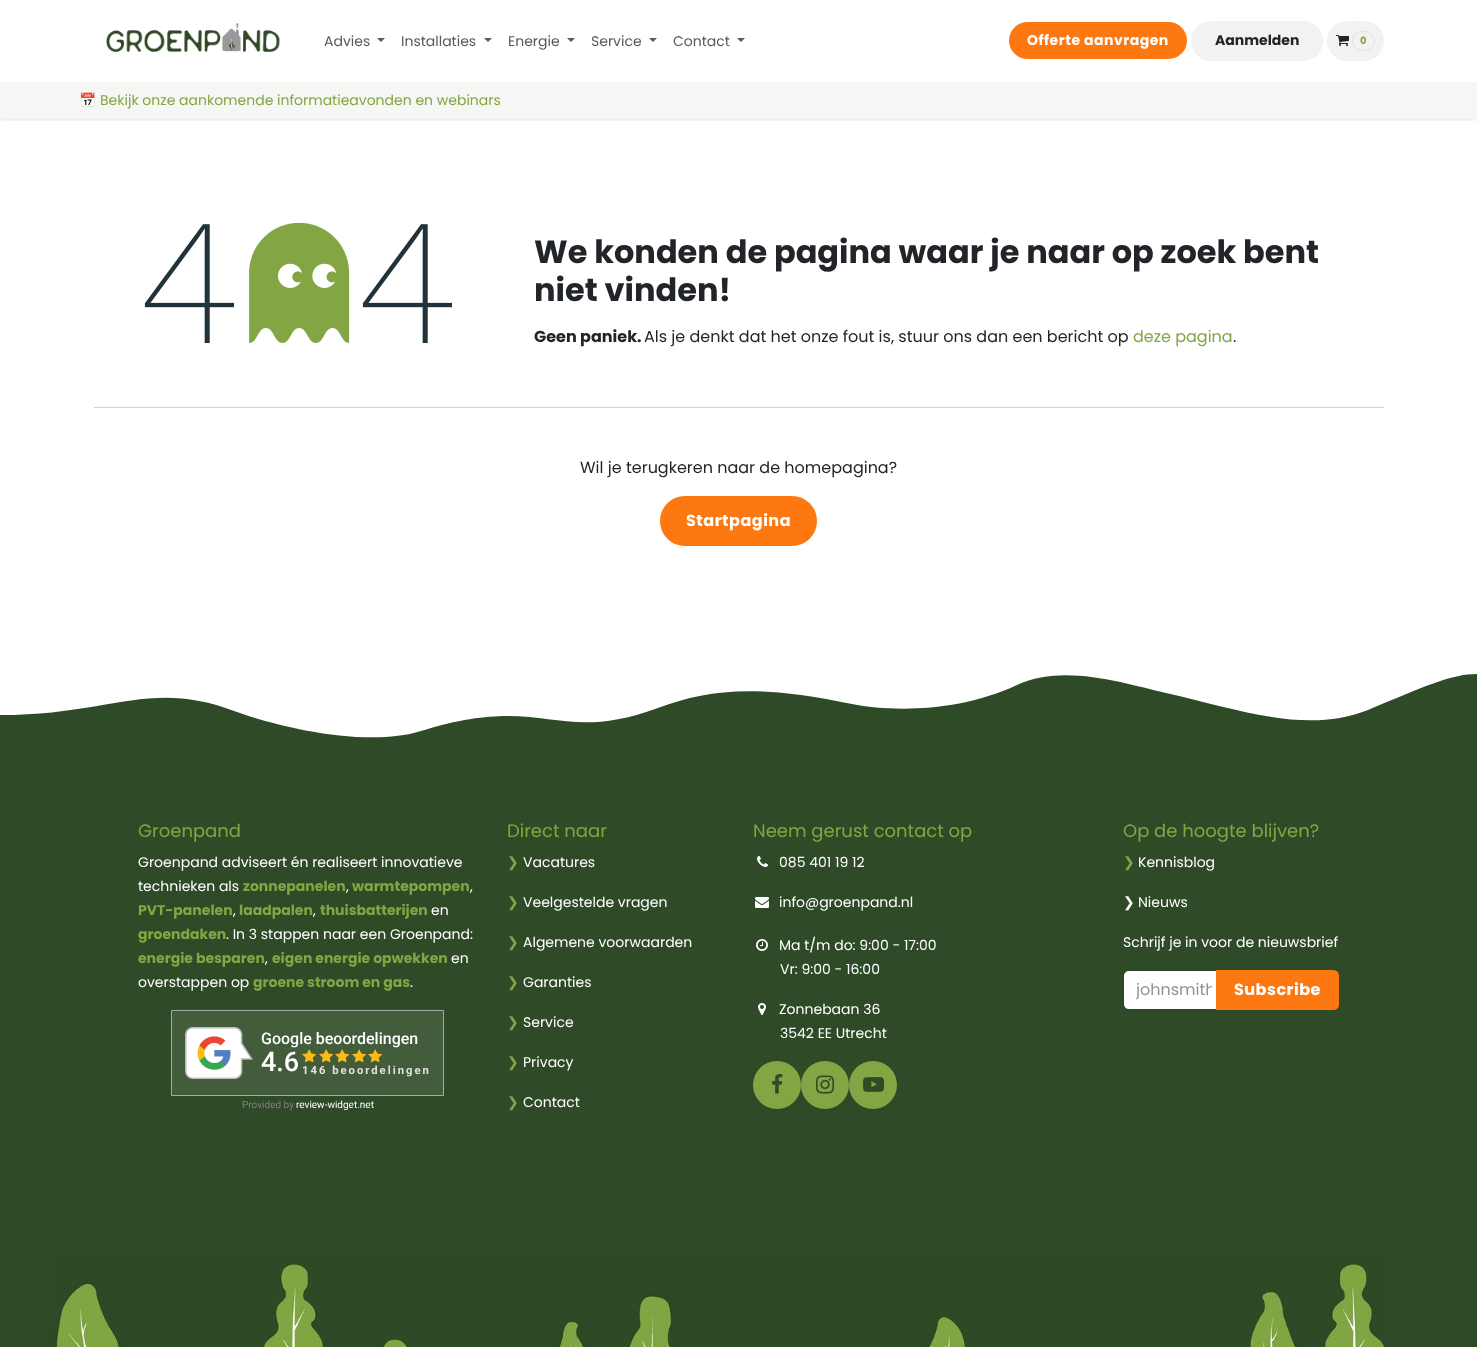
<svg xmlns="http://www.w3.org/2000/svg" width="1477" height="1347">
<style>
.a{font:14px Poppins;fill:#595959}
.b{font:bold 14px Poppins;letter-spacing:0.5px;fill:#fff}
.c{font:bold 14px Poppins;fill:#212529}
.d{font:bold 10px Poppins;fill:#83a544}
.e{font:14px Noto Color Emoji;fill:#83a544}
.f{font:14px Poppins;fill:#83a544}
.g{font:bold 32px Poppins;fill:#212529}
.h{font:bold 16px Poppins;fill:#212529}
.i{font:16px Poppins;fill:#212529}
.j{font:16px Poppins;fill:#83a544}
.k{font:bold 16px Poppins;letter-spacing:0.5px;fill:#fff}
.l{font:18px Poppins;fill:#83a544}
.m{font:14px Poppins;fill:#fff}
.n{font:bold 14px Poppins;fill:#83a544}
.o{font:500 16px Roboto;fill:#fff}
.p{font:500 27px Roboto;fill:#fff}
.q{font:bold 11.25px Roboto;letter-spacing:2px;fill:#e2e2e2}
.r{font:10px Roboto;fill:#808080}
.s{font:10px Roboto;fill:#fff}
.t{font:14px DejaVu Sans;fill:#83a544}
.u{font:14px DejaVu Sans;fill:#fff}
.v{font:16px Poppins;fill:#909294}
</style>
<defs>
<clipPath id="clip1"><path d="M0 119h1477v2H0z"/></clipPath>
<clipPath id="clip2"><path d="M1136 977h76v25H1136z"/></clipPath>
</defs>
<rect width="100%" height="100%" fill="#fff"/>
<g clip-path="url(#clip1)">
<path fill="#0000001a" filter="blur(1.5px)" d="M0 1h1477v119H0z"/>
</g>
<image href="1.png" x="106" y="23" width="174" height="30"/>
<path fill="#595959" d="M377 38h8l-4 4z"/>
<path fill="#595959" d="M484 38h8l-4 4z"/>
<path fill="#595959" d="M567 38h8l-4 4z"/>
<path fill="#595959" d="M649 38h8l-4 4z"/>
<path fill="#595959" d="M737 38h8l-4 4z"/>
<rect fill="#fd7811" stroke="#fd7811" stroke-width="2" x="1010" y="23" width="176" height="35" rx="17.5"/>
<rect fill="#f2f2f2" x="1191" y="21" width="132" height="40" rx="20"/>
<rect fill="#f2f2f2" x="1327" y="21" width="57" height="40" rx="20"/>
<image href="2.png" x="1336" y="35" width="13" height="11"/>
<rect fill="none" stroke="#dee2e6" x="1352.5" y="31.5" width="22" height="19" rx="9.5"/>
<path fill="#f6f7f4" d="M0 82h1477v37H0z"/>
<image href="3.png" x="144" y="223" width="308" height="120"/>
<path fill="#ced4da" d="M94 407h1290v1H94z"/>
<rect fill="#fd7811" stroke="#fd7811" stroke-width="2" x="661" y="497" width="155" height="48" rx="24"/>
<path fill="#2f4a26" d="M0 674h1477v673H0z"/>
<path fill="#fff" d="M0 674h1477c-26 0-54 13-109 36c-61 24-124 1-202-17c-40-9-102-30-149-8c-58 27-124 27-165 19c-96-20-143-15-194 4c-104 38-112-16-237 23c-61 19-160-10-184-19c-87-34-124 3-237 3z"/>
<path fill="#435c3b" stroke="#a6a8ab" d="M171.5 1010.5h272v85H171.5z"/>
<image href="4.png" x="185" y="1027" width="68" height="52"/>
<image href="5.png" x="302" y="1049" width="15" height="13"/>
<image href="6.png" x="319" y="1049" width="14" height="13"/>
<image href="5.png" x="335" y="1049" width="15" height="13"/>
<image href="6.png" x="352" y="1049" width="14" height="13"/>
<image href="6.png" x="368" y="1049" width="14" height="13"/>
<image href="7.png" x="757" y="856" width="11" height="11"/>
<image href="8.png" x="755" y="897" width="14" height="11"/>
<image href="9.png" x="756" y="939" width="12" height="12"/>
<image href="10.png" x="758" y="1003" width="8" height="12"/>
<circle fill="#83a544" cx="777" cy="1085" r="24"/>
<image href="11.png" x="772" y="1074" width="11" height="20"/>
<circle fill="#83a544" cx="825" cy="1085" r="24"/>
<image href="12.png" x="816" y="1075" width="18" height="19"/>
<circle fill="#83a544" cx="873" cy="1085" r="24"/>
<image href="13.png" x="863" y="1077" width="21" height="15"/>
<path fill="#fff" d="M1129 971h95v38h-95c-3 0-5-2-5-5v-28c0-3 2-5 5-5z"/>
<path fill="none" stroke="#21252926" d="M1129 970.5h95.5v39h-95.5c-3 0-5.5-2.5-5.5-5.5v-28c0-3 2.5-5.5 5.5-5.5z"/>
<path fill="#fd7811" stroke="#fd7811" stroke-width="2" d="M1217 971h116c3 0 5 2 5 5v28c0 3-2 5-5 5h-116z"/>
<image href="14.png" x="51" y="1254" width="1338" height="93"/>
<text class="a" x="324" y="46">Advies</text>
<text class="a" x="401" y="46">Installaties</text>
<text class="a" x="508" y="46">Energie</text>
<text class="a" x="591" y="46">Service</text>
<text class="a" x="673" y="46">Contact</text>
<text class="b" x="1027" y="45">Offerte aanvragen</text>
<text class="c" x="1215" y="45">Aanmelden</text>
<text class="d" x="1360" y="44">0</text>
<text class="e" x="79" y="105">📅</text>
<text class="f" x="100" y="105">Bekijk onze aankomende informatieavonden en webinars</text>
<text class="g" x="534" y="263">We konden de pagina waar je naar op zoek bent</text>
<text class="g" x="534" y="301">niet vinden!</text>
<text class="h" x="534" y="342">Geen paniek.</text>
<text class="i" x="644" y="342">Als je denkt dat het onze fout is, stuur ons dan een bericht op</text>
<text class="j" x="1133" y="342">deze pagina</text>
<text class="i" x="1233" y="342">.</text>
<text class="i" x="580" y="473">Wil je terugkeren naar de homepagina?</text>
<text class="k" x="686" y="526">Startpagina</text>
<text class="l" x="138" y="837">Groenpand</text>
<text class="m" x="138" y="867">Groenpand adviseert én realiseert innovatieve</text>
<text class="m" x="138" y="891">technieken als</text>
<text class="n" x="243" y="891">zonnepanelen</text>
<text class="m" x="346" y="891">,</text>
<text class="n" x="352" y="891">warmtepompen</text>
<text class="m" x="470" y="891">,</text>
<text class="n" x="138" y="915">PVT-panelen</text>
<text class="m" x="233" y="915">,</text>
<text class="n" x="239" y="915">laadpalen</text>
<text class="m" x="313" y="915">,</text>
<text class="n" x="320" y="915">thuisbatterijen</text>
<text class="m" x="431" y="915">en</text>
<text class="n" x="138" y="939">groendaken</text>
<text class="m" x="226" y="939">. In 3 stappen naar een Groenpand:</text>
<text class="n" x="138" y="963">energie besparen</text>
<text class="m" x="265" y="963">,</text>
<text class="n" x="272" y="963">eigen energie opwekken</text>
<text class="m" x="451" y="963">en</text>
<text class="m" x="138" y="987">overstappen op</text>
<text class="n" x="253" y="987">groene stroom en gas</text>
<text class="m" x="410" y="987">.</text>
<text class="o" x="261" y="1044">Google beoordelingen</text>
<text class="p" x="261" y="1071">4.6</text>
<text class="q" x="302" y="1074">146 beoordelingen</text>
<text class="r" x="242" y="1108">Provided by</text>
<text class="s" x="296" y="1108">review-widget.net</text>
<text class="l" x="507" y="837">Direct naar</text>
<text class="t" x="507" y="867">❯</text>
<text class="m" x="523" y="867">Vacatures</text>
<text class="t" x="507" y="907">❯</text>
<text class="m" x="523" y="907">Veelgestelde vragen</text>
<text class="t" x="507" y="947">❯</text>
<text class="m" x="523" y="947">Algemene voorwaarden</text>
<text class="t" x="507" y="987">❯</text>
<text class="m" x="523" y="987">Garanties</text>
<text class="t" x="507" y="1027">❯</text>
<text class="m" x="523" y="1027">Service</text>
<text class="t" x="507" y="1067">❯</text>
<text class="m" x="523" y="1067">Privacy</text>
<text class="t" x="507" y="1107">❯</text>
<text class="m" x="523" y="1107">Contact</text>
<text class="l" x="753" y="837">Neem gerust contact op</text>
<text class="m" x="779" y="867">085 401 19 12</text>
<text class="m" x="779" y="907">info@groenpand.nl</text>
<text class="m" x="779" y="950">Ma t/m do: 9:00 - 17:00</text>
<text class="m" x="780" y="974">Vr: 9:00 - 16:00</text>
<text class="m" x="779" y="1014">Zonnebaan 36</text>
<text class="m" x="780" y="1038">3542 EE Utrecht</text>
<text class="l" x="1123" y="837">Op de hoogte blijven?</text>
<text class="t" x="1123" y="867">❯</text>
<text class="m" x="1138" y="867">Kennisblog</text>
<text class="u" x="1123" y="907">❯</text>
<text class="m" x="1138" y="907">Nieuws</text>
<text class="m" x="1123" y="947">Schrijf je in voor de nieuwsbrief</text>
<g clip-path="url(#clip2)">
<text class="v" x="1136" y="995">johnsmith</text>
</g>
<text class="k" x="1234" y="995">Subscribe</text>
</svg>
